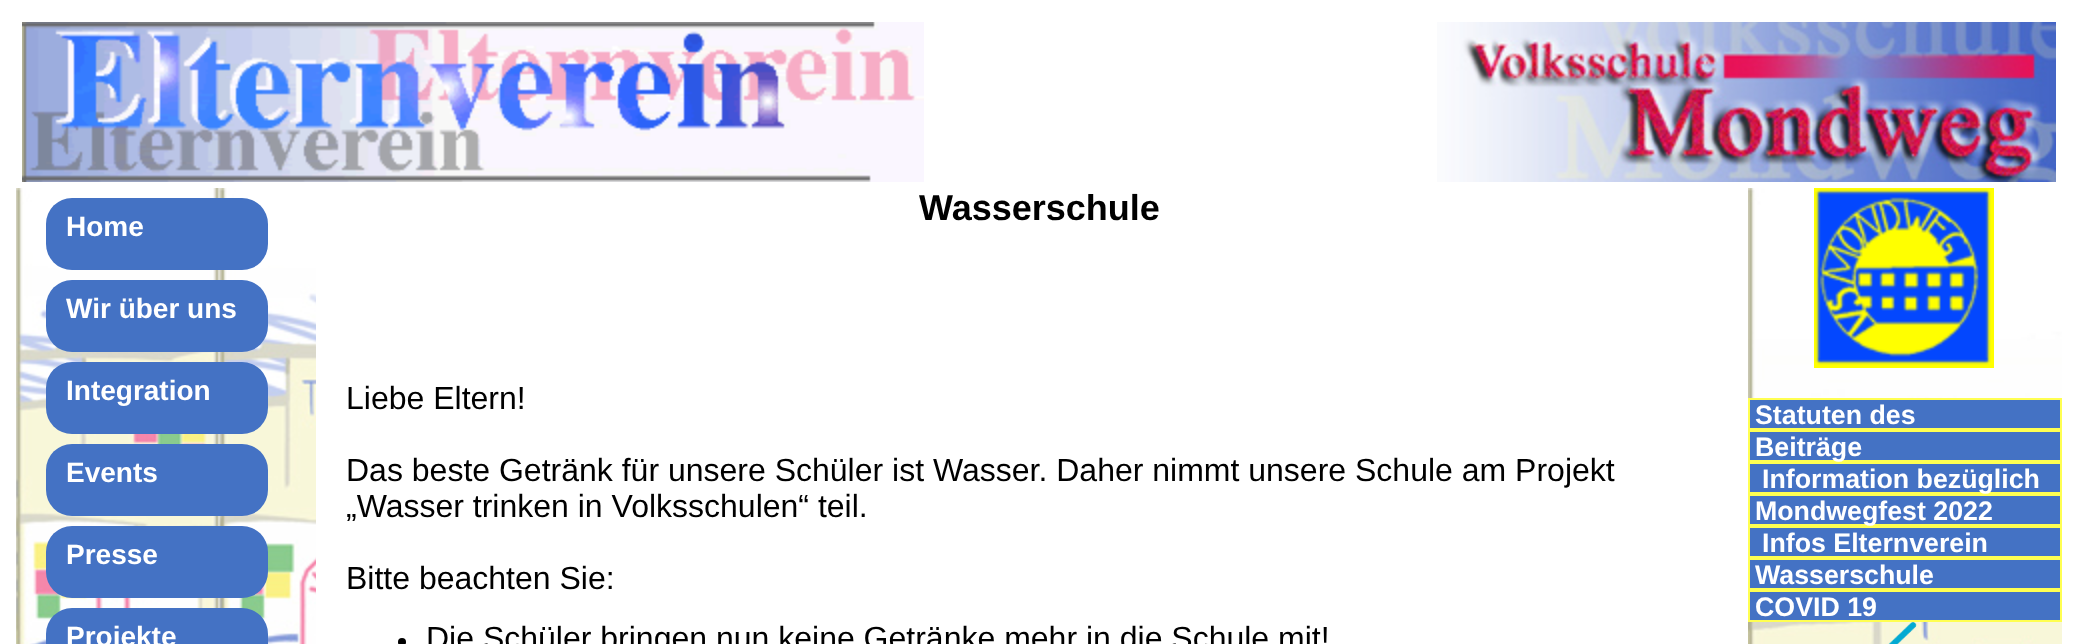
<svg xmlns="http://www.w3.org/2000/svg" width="2078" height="644">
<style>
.a{font:bold 28px Liberation Sans;fill:#fff}
.b{font:bold 36px Liberation Sans;fill:#000}
.c{font:32px Liberation Sans;fill:#000}
.d{font:bold 26.75px Liberation Sans;fill:#fff}
</style>
<rect width="100%" height="100%" fill="#fff"/>
<image href="1.png" x="22" y="22" width="902" height="160"/>
<image href="2.png" x="1437" y="22" width="619" height="160"/>
<image href="3.png" x="16" y="188" width="300" height="456"/>
<rect fill="#4472c4" x="46" y="198" width="222" height="72" rx="26"/>
<rect fill="#4472c4" x="46" y="280" width="222" height="72" rx="26"/>
<rect fill="#4472c4" x="46" y="362" width="222" height="72" rx="26"/>
<rect fill="#4472c4" x="46" y="444" width="222" height="72" rx="26"/>
<rect fill="#4472c4" x="46" y="526" width="222" height="72" rx="26"/>
<rect fill="#4472c4" x="46" y="608" width="222" height="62" rx="26"/>
<circle fill="#000" cx="402" cy="642" r="4"/>
<image href="4.png" x="1748" y="188" width="314" height="456"/>
<image href="5.png" x="1814" y="188" width="180" height="180"/>
<path fill="#4472c4" stroke="#ffff51" stroke-width="2" d="M1749 399h312v30H1749z"/>
<path fill="#4472c4" stroke="#ffff51" stroke-width="2" d="M1749 431h312v30H1749z"/>
<path fill="#4472c4" stroke="#ffff51" stroke-width="2" d="M1749 463h312v30H1749z"/>
<path fill="#4472c4" stroke="#ffff51" stroke-width="2" d="M1749 495h312v30H1749z"/>
<path fill="#4472c4" stroke="#ffff51" stroke-width="2" d="M1749 527h312v30H1749z"/>
<path fill="#4472c4" stroke="#ffff51" stroke-width="2" d="M1749 559h312v30H1749z"/>
<path fill="#4472c4" stroke="#ffff51" stroke-width="2" d="M1749 591h312v30H1749z"/>
<image href="6.png" x="1888" y="622" width="29" height="22"/>
<text class="a" x="66" y="236">Home</text>
<text class="a" x="66" y="318">Wir über uns</text>
<text class="a" x="66" y="400">Integration</text>
<text class="a" x="66" y="482">Events</text>
<text class="a" x="66" y="564">Presse</text>
<text class="a" x="66" y="646">Projekte</text>
<text class="b" x="919" y="220">Wasserschule</text>
<text class="c" x="346" y="409">Liebe Eltern!</text>
<text class="c" x="346" y="481">Das beste Getränk für unsere Schüler ist Wasser. Daher nimmt unsere Schule am Projekt</text>
<text class="c" x="346" y="517">„Wasser trinken in Volksschulen“ teil.</text>
<text class="c" x="346" y="589">Bitte beachten Sie:</text>
<text class="c" x="426" y="649">Die Schüler bringen nun keine Getränke mehr in die Schule mit!</text>
<text class="d" x="1755" y="424">Statuten des</text>
<text class="d" x="1755" y="456">Beiträge</text>
<text class="d" x="1762" y="488">Information bezüglich</text>
<text class="d" x="1755" y="520">Mondwegfest 2022</text>
<text class="d" x="1762" y="552">Infos Elternverein</text>
<text class="d" x="1755" y="584">Wasserschule</text>
<text class="d" x="1755" y="616">COVID 19</text>
</svg>
